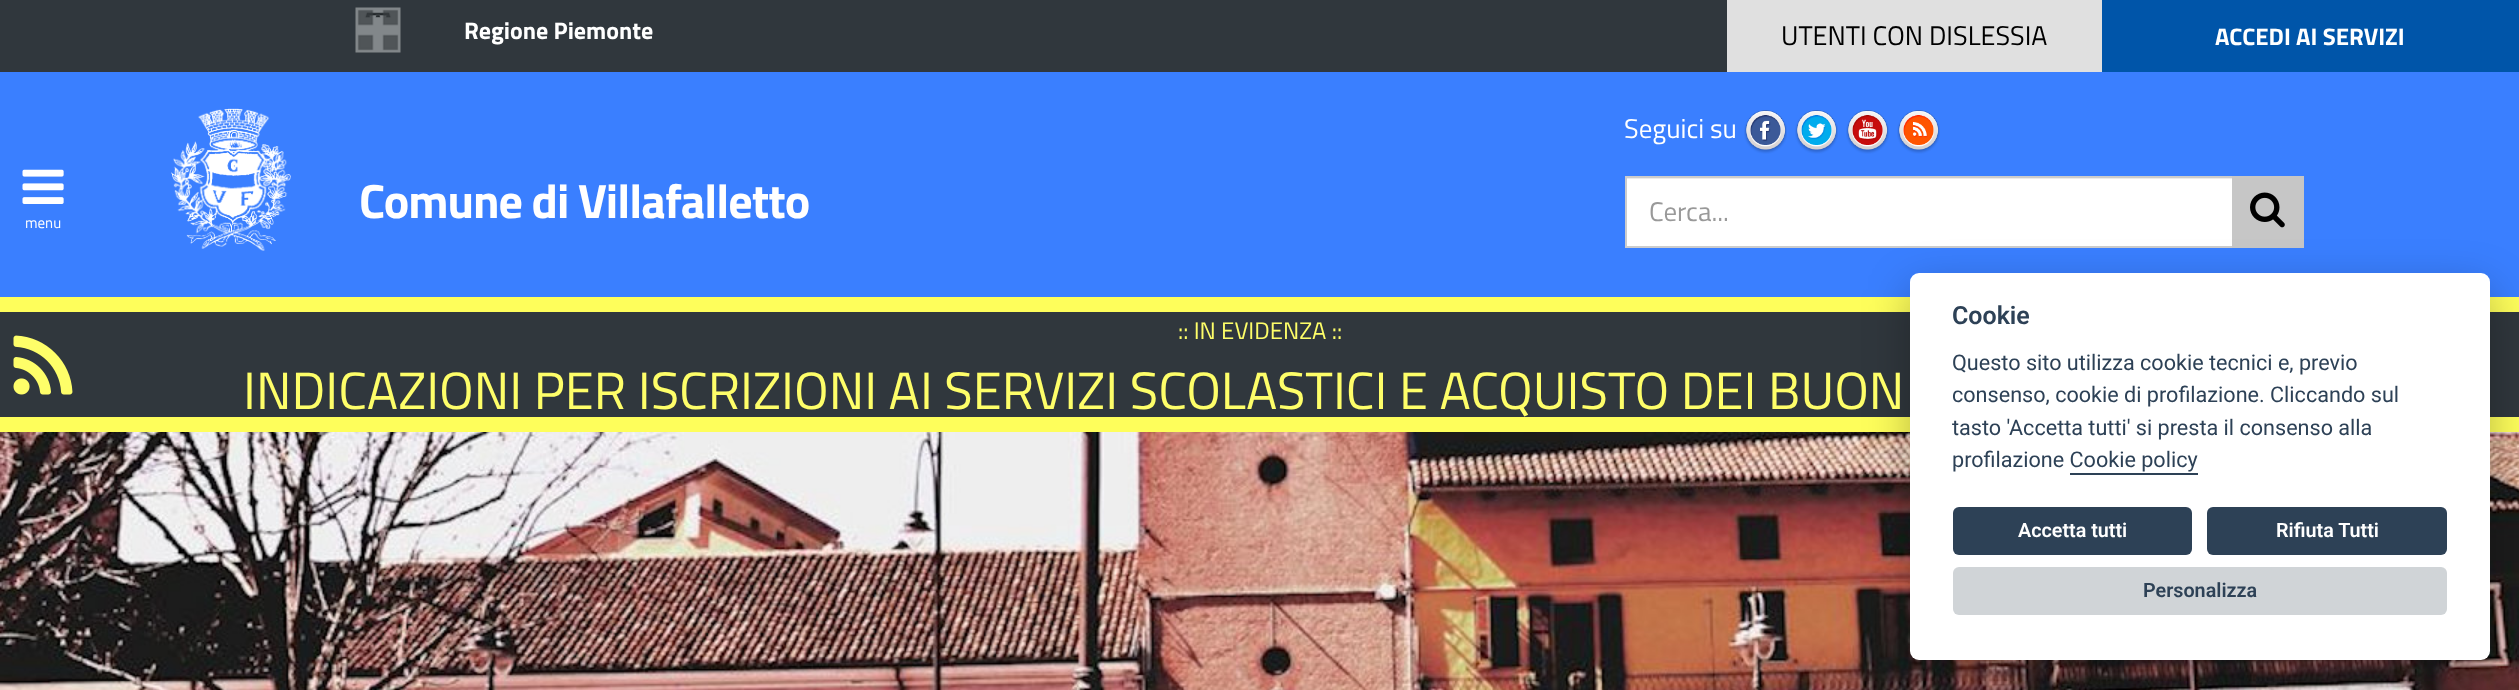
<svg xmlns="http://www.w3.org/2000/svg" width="2519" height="690">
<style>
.a{font:bold 24px Titillium Web;fill:#fff}
.b{font:27px Titillium Web;fill:#000}
.c{font:bold 48px Titillium Web;letter-spacing:-1px;fill:#fff}
.d{font:27px Titillium Web;fill:#fff}
.e{font:27px Titillium Web;fill:#999}
.f{font:15px Titillium Web;fill:#fff}
.g{font:24px Titillium Web;fill:#fefe69}
.h{font:52.5px Titillium Web;fill:#fefe69}
.i{font:600 25px Roboto;fill:#2d4156}
.j{font:21.6px Roboto;fill:#2d4156}
.k{font:600 19.75px Roboto;fill:#fff}
.l{font:600 19.75px Roboto;fill:#2d4156}
</style>
<rect width="100%" height="100%" fill="#3a7fff"/>
<path fill="#30373d" d="M0 0h1727v72H0z"/>
<image href="1.png" x="355" y="7" width="46" height="46"/>
<path fill="#0055a9" d="M2102 0h417v72H2102z"/>
<path fill="#e0e0e0" d="M1727 0h375v72H1727z"/>
<image href="2.png" x="171" y="108" width="120" height="143"/>
<image href="3.png" x="1744" y="110" width="43" height="44"/>
<image href="4.png" x="1795" y="110" width="43" height="44"/>
<image href="5.png" x="1846" y="110" width="43" height="44"/>
<image href="6.png" x="1897" y="110" width="43" height="44"/>
<path fill="#fff" d="M1627 179h605v67H1627z"/>
<path fill="#ececec" d="M1626 178h606v1H1626z"/>
<path fill="none" stroke="#ccc" stroke-width="2" d="M1626 177h677v70H1626z"/>
<path fill="#c6c6c6" d="M2232 176h72v72H2232z"/>
<image href="7.png" x="2250" y="192" width="35" height="36"/>
<image href="8.png" x="22" y="169" width="42" height="35"/>
<image href="9.png" x="0" y="432" width="2519" height="258"/>
<path fill="#30373d" d="M0 312h2519v105H0z"/>
<path fill="#fefe5b" d="M0 297h2519v15H0z"/>
<path fill="#fefe5b" d="M0 417h2519v15H0z"/>
<image href="10.png" x="13" y="335" width="60" height="60"/>
<rect fill="#02020347" filter="blur(22.5px)" x="1910" y="288" width="580" height="387" rx="9"/>
<rect fill="#fff" x="1910" y="273" width="580" height="387" rx="9"/>
<path fill="#2d4156" d="M2070 473h128v2H2070z"/>
<rect fill="#2d4156" x="1953" y="507" width="239" height="48" rx="6"/>
<rect fill="#2d4156" x="2207" y="507" width="240" height="48" rx="6"/>
<rect fill="#d0d4d7" x="1953" y="567" width="494" height="48" rx="6"/>
<text class="a" x="464" y="39">Regione Piemonte</text>
<text class="a" x="2215" y="45">ACCEDI AI SERVIZI</text>
<text class="b" x="1781" y="45">UTENTI CON DISLESSIA</text>
<text class="c" x="359" y="218">Comune di Villafalletto</text>
<text class="d" x="1624" y="138">Seguici su</text>
<text class="e" x="1649" y="221">Cerca...</text>
<text class="f" x="25" y="228">menu</text>
<text class="g" x="1178" y="339">:: IN EVIDENZA ::</text>
<text class="h" x="243" y="409">INDICAZIONI PER ISCRIZIONI AI SERVIZI SCOLASTICI E ACQUISTO DEI BUON</text>
<text class="i" x="1952" y="324">Cookie</text>
<text class="j" x="1952" y="370">Questo sito utilizza cookie tecnici e, previo</text>
<text class="j" x="1952" y="402">consenso, cookie di profilazione. Cliccando sul</text>
<text class="j" x="1952" y="435">tasto 'Accetta tutti' si presta il consenso alla</text>
<text class="j" x="1952" y="467">profilazione Cookie policy</text>
<text class="k" x="2018" y="537">Accetta tutti</text>
<text class="k" x="2276" y="537">Rifiuta Tutti</text>
<text class="l" x="2143" y="597">Personalizza</text>
</svg>
